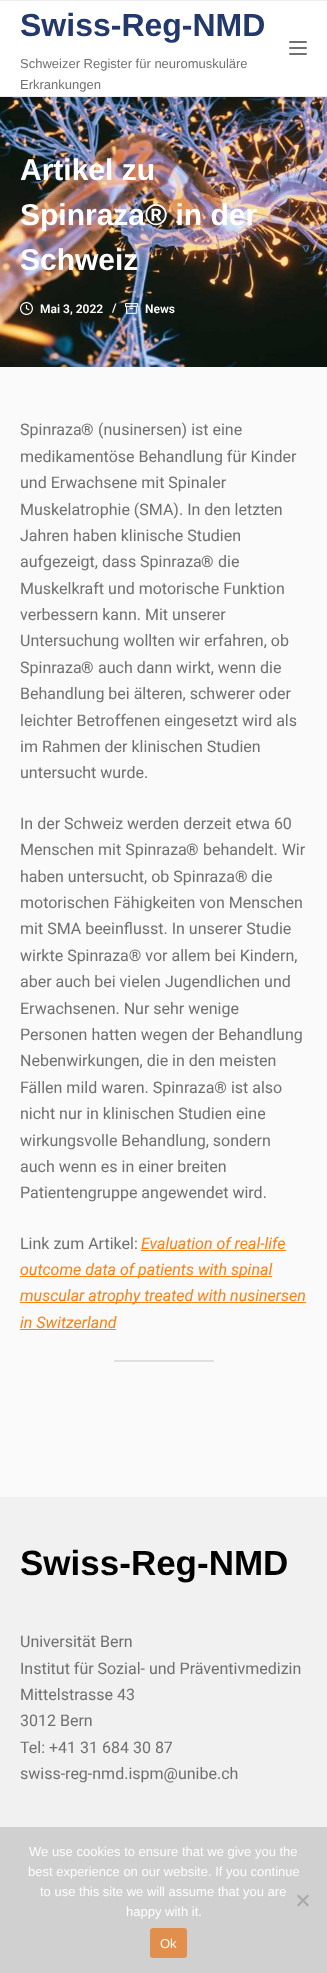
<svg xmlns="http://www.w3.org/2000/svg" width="327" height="1973">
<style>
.a{font:bold 32px Liberation Sans;fill:#23396c}
.b{font:13px Liberation Sans;fill:#707070}
.c{font:bold 30px Liberation Sans;fill:#fff}
.d{font:600 12px Roboto;fill:#fff}
.e{font:16px Roboto;fill:#707070}
.f{font:bold 16px Roboto;fill:#707070}
.g{font:italic 16px Roboto;fill:#fc8012}
.h{font:bold 35px Liberation Sans;fill:#000}
.i{font:13px Liberation Sans;fill:#fff}
</style>
<rect width="100%" height="100%" fill="#fafafa"/>
<path fill="#fff" d="M0 1h327v95H0z"/>
<path fill="#eaecee" d="M0 0h327v1H0z"/>
<path fill="#eaecee" d="M0 96h327v1H0z"/>
<rect fill="#707070" x="289" y="41" width="18" height="2" rx="1"/>
<rect fill="#707070" x="289" y="47" width="18" height="2" rx="1"/>
<rect fill="#707070" x="289" y="53" width="18" height="2" rx="1"/>
<image href="1.png" x="0" y="97" width="327" height="270"/>
<image href="2.png" x="20" y="302" width="13" height="13"/>
<image href="3.png" x="125" y="303" width="13" height="11"/>
<path fill="#fc8012" d="M141 1250h145v1H141z"/>
<path fill="#fc8012" d="M20 1276h252v1H20z"/>
<path fill="#fc8012" d="M20 1302h286v1H20z"/>
<path fill="#fc8012" d="M20 1329h96v1H20z"/>
<path fill="#e0e0e0" d="M114 1360h100v2H114z"/>
<path fill="#f1f1f1" d="M0 1497h327v330H0z"/>
<path fill="#d0d0d0" d="M0 1827h327v146H0z"/>
<path fill="#a8a8a8" d="M307.5 1894.5l1.5 1.5l-10.5 10.5l-1.5-1.5z"/>
<path fill="#a8a8a8" d="M297 1896l1.5-1.5l10.5 10.5l-1.5 1.5z"/>
<rect fill="#e28e4d" x="150" y="1928" width="37" height="30" rx="3"/>
<text class="a" x="20" y="36">Swiss-Reg-NMD</text>
<text class="b" x="20" y="68">Schweizer Register für neuromuskuläre</text>
<text class="b" x="20" y="89">Erkrankungen</text>
<text class="c" x="20" y="180">Artikel zu</text>
<text class="c" x="20" y="225">Spinraza® in der</text>
<text class="c" x="20" y="270">Schweiz</text>
<text class="d" x="40" y="313">Mai 3, 2022</text>
<text class="d" x="112" y="312">/</text>
<text class="d" x="145" y="313">News</text>
<text class="e" x="20" y="435">Spinraza</text>
<text class="f" x="81" y="435">®</text>
<text class="e" x="98" y="435">(nusinersen) ist eine</text>
<text class="e" x="20" y="462">medikamentöse Behandlung für Kinder</text>
<text class="e" x="20" y="488">und Erwachsene mit Spinaler</text>
<text class="e" x="20" y="515">Muskelatrophie (SMA). In den letzten</text>
<text class="e" x="20" y="541">Jahren haben klinische Studien</text>
<text class="e" x="20" y="567">aufgezeigt, dass Spinraza</text>
<text class="f" x="201" y="567">®</text>
<text class="e" x="218" y="567">die</text>
<text class="e" x="20" y="594">Muskelkraft und motorische Funktion</text>
<text class="e" x="20" y="620">verbessern kann. Mit unserer</text>
<text class="e" x="20" y="646">Untersuchung wollten wir erfahren, ob</text>
<text class="e" x="20" y="673">Spinraza</text>
<text class="f" x="81" y="673">®</text>
<text class="e" x="98" y="673">auch dann wirkt, wenn die</text>
<text class="e" x="20" y="699">Behandlung bei älteren, schwerer oder</text>
<text class="e" x="20" y="726">leichter Betroffenen eingesetzt wird als</text>
<text class="e" x="20" y="752">im Rahmen der klinischen Studien</text>
<text class="e" x="20" y="778">untersucht wurde.</text>
<text class="e" x="20" y="829">In der Schweiz werden derzeit etwa 60</text>
<text class="e" x="20" y="855">Menschen mit Spinraza</text>
<text class="f" x="186" y="855">®</text>
<text class="e" x="203" y="855">behandelt. Wir</text>
<text class="e" x="20" y="882">haben untersucht, ob Spinraza</text>
<text class="f" x="235" y="882">®</text>
<text class="e" x="251" y="882">die</text>
<text class="e" x="20" y="908">motorischen Fähigkeiten von Menschen</text>
<text class="e" x="20" y="934">mit SMA beeinflusst. In unserer Studie</text>
<text class="e" x="20" y="961">wirkte Spinraza® vor allem bei Kindern,</text>
<text class="e" x="20" y="987">aber auch bei vielen Jugendlichen und</text>
<text class="e" x="20" y="1014">Erwachsenen. Nur sehr wenige</text>
<text class="e" x="20" y="1040">Personen hatten wegen der Behandlung</text>
<text class="e" x="20" y="1066">Nebenwirkungen, die in den meisten</text>
<text class="e" x="20" y="1093">Fällen mild waren. Spinraza® ist also</text>
<text class="e" x="20" y="1119">nicht nur in klinischen Studien eine</text>
<text class="e" x="20" y="1146">wirkungsvolle Behandlung, sondern</text>
<text class="e" x="20" y="1172">auch wenn es in einer breiten</text>
<text class="e" x="20" y="1198">Patientengruppe angewendet wird.</text>
<text class="e" x="20" y="1249">Link zum Artikel:</text>
<text class="g" x="141" y="1249">Evaluation of real-life</text>
<text class="g" x="20" y="1275">outcome data of patients with spinal</text>
<text class="g" x="20" y="1301">muscular atrophy treated with nusinersen</text>
<text class="g" x="20" y="1328">in Switzerland</text>
<text class="h" x="20" y="1575">Swiss-Reg-NMD</text>
<text class="e" x="20" y="1647">Universität Bern</text>
<text class="e" x="20" y="1674">Institut für Sozial- und Präventivmedizin</text>
<text class="e" x="20" y="1700">Mittelstrasse 43</text>
<text class="e" x="20" y="1726">3012 Bern</text>
<text class="e" x="20" y="1753">Tel: +41 31 684 30 87</text>
<text class="e" x="20" y="1779">swiss-reg-nmd.ispm@unibe.ch</text>
<text class="i" x="29" y="1856">We use cookies to ensure that we give you the</text>
<text class="i" x="28" y="1876">best experience on our website. If you continue</text>
<text class="i" x="40" y="1896">to use this site we will assume that you are</text>
<text class="i" x="126" y="1916">happy with it.</text>
<text class="i" x="160" y="1948">Ok</text>
</svg>
